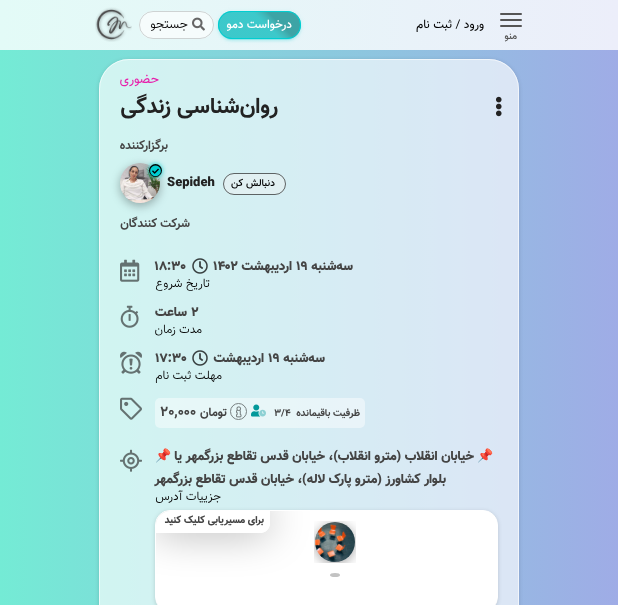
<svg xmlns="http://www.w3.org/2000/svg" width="618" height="605">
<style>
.a{font:12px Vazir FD;direction:rtl;fill:#000}
.b{font:500 12px Vazir FD;direction:rtl;fill:#fff}
.c{font:300 13px Vazir FD;direction:rtl;fill:#000}
.d{font:500 10px Vazir FD;direction:rtl;fill:#555}
.e{font:13px Vazir FD;direction:rtl;fill:#e720ab}
.f{font:bold 22px Vazir FD;direction:rtl;fill:#222}
.g{font:bold 12px Vazir FD;direction:rtl;fill:#444}
.h{font:500 10px Vazir FD;direction:rtl;fill:#000}
.i{font:900 13px Vazir FD;fill:#222}
.j{font:900 13px Vazir FD;direction:rtl;fill:#444}
.k{font:900 13px Vazir FD;fill:#444}
.l{font:300 12px Vazir FD;direction:rtl;fill:#000}
.m{font:bold 10px Vazir FD;direction:rtl;fill:#444}
.n{font:bold 10px Vazir FD;fill:#444}
.o{font:bold 14px Vazir FD;fill:#444}
.p{font:bold 13px Noto Color Emoji;direction:rtl;fill:#444}
.q{font:bold 13px Noto Color Emoji;fill:#444}
.r{font:900 10px Vazir FD;direction:rtl;fill:#444}
</style>
<defs>
<linearGradient id="g1" gradientUnits="userSpaceOnUse" x1="0" y1="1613" x2="618" y2="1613"><stop offset="0" stop-color="#74ebd5"/><stop offset="1" stop-color="#9face6"/></linearGradient>
<linearGradient id="g2" gradientUnits="userSpaceOnUse" x1="0" y1="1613" x2="618" y2="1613"><stop offset="0" stop-color="#e3fbf7"/><stop offset="1" stop-color="#eceefa"/></linearGradient>
<clipPath id="clip1"><rect x="218" y="11" width="83" height="28" rx="14"/></clipPath>
<linearGradient id="g3" gradientUnits="userSpaceOnUse" x1="286" y1="-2" x2="233" y2="52"><stop offset="0.3" stop-color="#7a7a7a" stop-opacity="0.5"/><stop offset="0.44" stop-color="#bdbdbd" stop-opacity="0.32"/></linearGradient>
<clipPath id="clip2"><path d="M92 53h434v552h-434zm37 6h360c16.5 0 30 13.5 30 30v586c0 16.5-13.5 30-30 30h-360c-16.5 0-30-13.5-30-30v-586c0-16.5 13.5-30 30-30z" clip-rule="evenodd"/></clipPath>
<clipPath id="clip3"><rect x="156" y="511" width="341" height="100" rx="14"/></clipPath>
</defs>
<rect width="100%" height="100%" fill="#fff"/>
<path fill="url(#g1)" d="M0 50h618v555H0z"/>
<path fill="url(#g2)" d="M0 0h618v50H0z"/>
<rect fill="#f6fcfc" x="139" y="11" width="75" height="28" rx="14"/>
<rect fill="none" stroke="#00000029" x="139.5" y="11.5" width="74" height="27" rx="13.5"/>
<rect fill="#00ced11f" filter="blur(2.5px)" x="218" y="12" width="83" height="28" rx="14"/>
<rect fill="#00ced133" filter="blur(0.5px)" x="220" y="16" width="79" height="24" rx="12"/>
<rect fill="#00ced124" filter="blur(1px)" x="218" y="13" width="83" height="28" rx="14"/>
<rect fill="#00ced1" x="218" y="11" width="83" height="28" rx="14"/>
<g clip-path="url(#clip1)">
<path fill="url(#g3)" d="M219 12h81v26H219z"/>
</g>
<rect fill="none" stroke="#00ced1" x="218.5" y="11.5" width="82" height="27" rx="13.5"/>
<image href="1.png" x="192" y="17" width="13" height="14"/>
<image href="2.png" x="95" y="7" width="37" height="35"/>
<rect fill="#555" x="500" y="13" width="22" height="2" rx="1"/>
<rect fill="#555" x="500" y="19" width="22" height="2" rx="1"/>
<rect fill="#555" x="500" y="25" width="22" height="2" rx="1"/>
<g clip-path="url(#clip2)">
<rect fill="#00000024" filter="blur(2px)" x="99" y="60" width="420" height="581" rx="30"/>
</g>
<rect fill="#ffffffa6" x="99" y="59" width="420" height="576" rx="30"/>
<rect fill="none" stroke="#ffffff9e" x="99.5" y="59.5" width="419" height="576" rx="29.5"/>
<image href="3.png" x="496" y="96" width="6" height="21"/>
<rect fill="#e1f0f2" x="223" y="173" width="63" height="22" rx="11"/>
<rect fill="none" stroke="#05050599" x="223.5" y="173.5" width="62" height="21" rx="10.5"/>
<rect fill="#0000004d" filter="blur(5px)" x="120" y="166" width="40" height="40" rx="20"/>
<image href="5.png" x="120" y="163" width="40" height="40"/>
<rect fill="#00cecf" filter="blur(2.5px)" x="149" y="164" width="13" height="13" rx="6.5"/>
<circle fill="#000" cx="155.5" cy="170.5" r="6.5"/>
<image href="4.png" x="150" y="165" width="11" height="12"/>
<image href="6.png" x="192" y="258" width="16" height="16"/>
<image href="7.png" x="120" y="259" width="20" height="23"/>
<image href="8.png" x="120" y="305" width="19" height="23"/>
<image href="6.png" x="192" y="350" width="16" height="16"/>
<image href="9.png" x="120" y="351" width="22" height="23"/>
<rect fill="#ffffff73" x="155" y="398" width="210" height="30" rx="5"/>
<image href="11.png" x="251" y="404" width="10" height="13"/>
<image href="10.png" x="259" y="409" width="7" height="8"/>
<circle fill="none" stroke="#788081" cx="238.5" cy="411.5" r="8"/>
<image href="12.png" x="236" y="406" width="6" height="12"/>
<image href="13.png" x="120" y="397" width="22" height="23"/>
<rect fill="#00000024" filter="blur(2px)" x="155" y="511" width="343" height="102" rx="15"/>
<rect fill="#fff" stroke="#fff" x="155.5" y="510.5" width="342" height="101" rx="14.5"/>
<image href="14.png" x="314" y="521" width="42" height="42"/>
<ellipse fill="#c2c2c2" cx="335" cy="575" rx="5" ry="2"/>
<image href="15.png" x="120" y="449" width="22" height="23"/>
<g clip-path="url(#clip3)">
<rect fill="#00000059" filter="blur(20px)" x="154" y="507" width="116" height="25" rx="10"/>
</g>
<path fill="#fff" d="M170 511h100v12c0 5.5-4.5 10-10 10h-104v-8c0-7.5 6.5-14 14-14z"/>
<path fill="#fff" d="M270 511v12c0 6-4 10-10 10h-104v-1h104c5 0 9-4 9-9v-12z"/>
<text class="a" x="484" y="28">ورود / ثبت نام</text>
<text class="b" x="292" y="28">درخواست دمو</text>
<text class="c" x="188" y="28">جستجو</text>
<text class="d" x="517" y="39">منو</text>
<text class="e" x="159" y="83">حضوری</text>
<text class="f" x="278" y="113">روان‌شناسی زندگی</text>
<text class="g" x="168" y="149">برگزارکننده</text>
<text class="h" x="275" y="186">دنبالش کن</text>
<text class="i" x="167" y="186">Sepideh</text>
<text class="g" x="190" y="227">شرکت کنندگان</text>
<text class="j" x="353" y="270">سه‌شنبه</text>
<text class="k" x="296" y="270">۱۹</text>
<text class="j" x="292" y="270">اردیبهشت</text>
<text class="k" x="213" y="270">۱۴۰۲</text>
<text class="k" x="155" y="270">۱۸:۳۰</text>
<text class="l" x="210" y="287">تاریخ شروع</text>
<text class="k" x="191" y="316">2</text>
<text class="j" x="187" y="316">ساعت</text>
<text class="l" x="202" y="333">مدت زمان</text>
<text class="j" x="325" y="362">سه‌شنبه</text>
<text class="k" x="268" y="362">۱۹</text>
<text class="j" x="264" y="362">اردیبهشت</text>
<text class="k" x="155" y="362">17:30</text>
<text class="l" x="222" y="379">مهلت ثبت نام</text>
<text class="m" x="360" y="416">ظرفیت باقیمانده</text>
<text class="n" x="274" y="416">3/4</text>
<text class="g" x="227" y="416">تومان</text>
<text class="o" x="160" y="416">20,000</text>
<text class="p" x="494" y="460">📌</text>
<text class="j" x="474" y="460">خیابان انقلاب (مترو انقلاب)، خیابان قدس تقاطع بزرگمهر</text>
<text class="j" x="182" y="460">یا</text>
<text class="q" x="155" y="460">📌</text>
<text class="j" x="446" y="483">بلوار کشاورز (مترو پارک لاله)، خیابان قدس تقاطع بزرگمهر</text>
<text class="l" x="221" y="500">جزییات آدرس</text>
<text class="r" x="264" y="523">برای مسیریابی کلیک کنید</text>
</svg>
